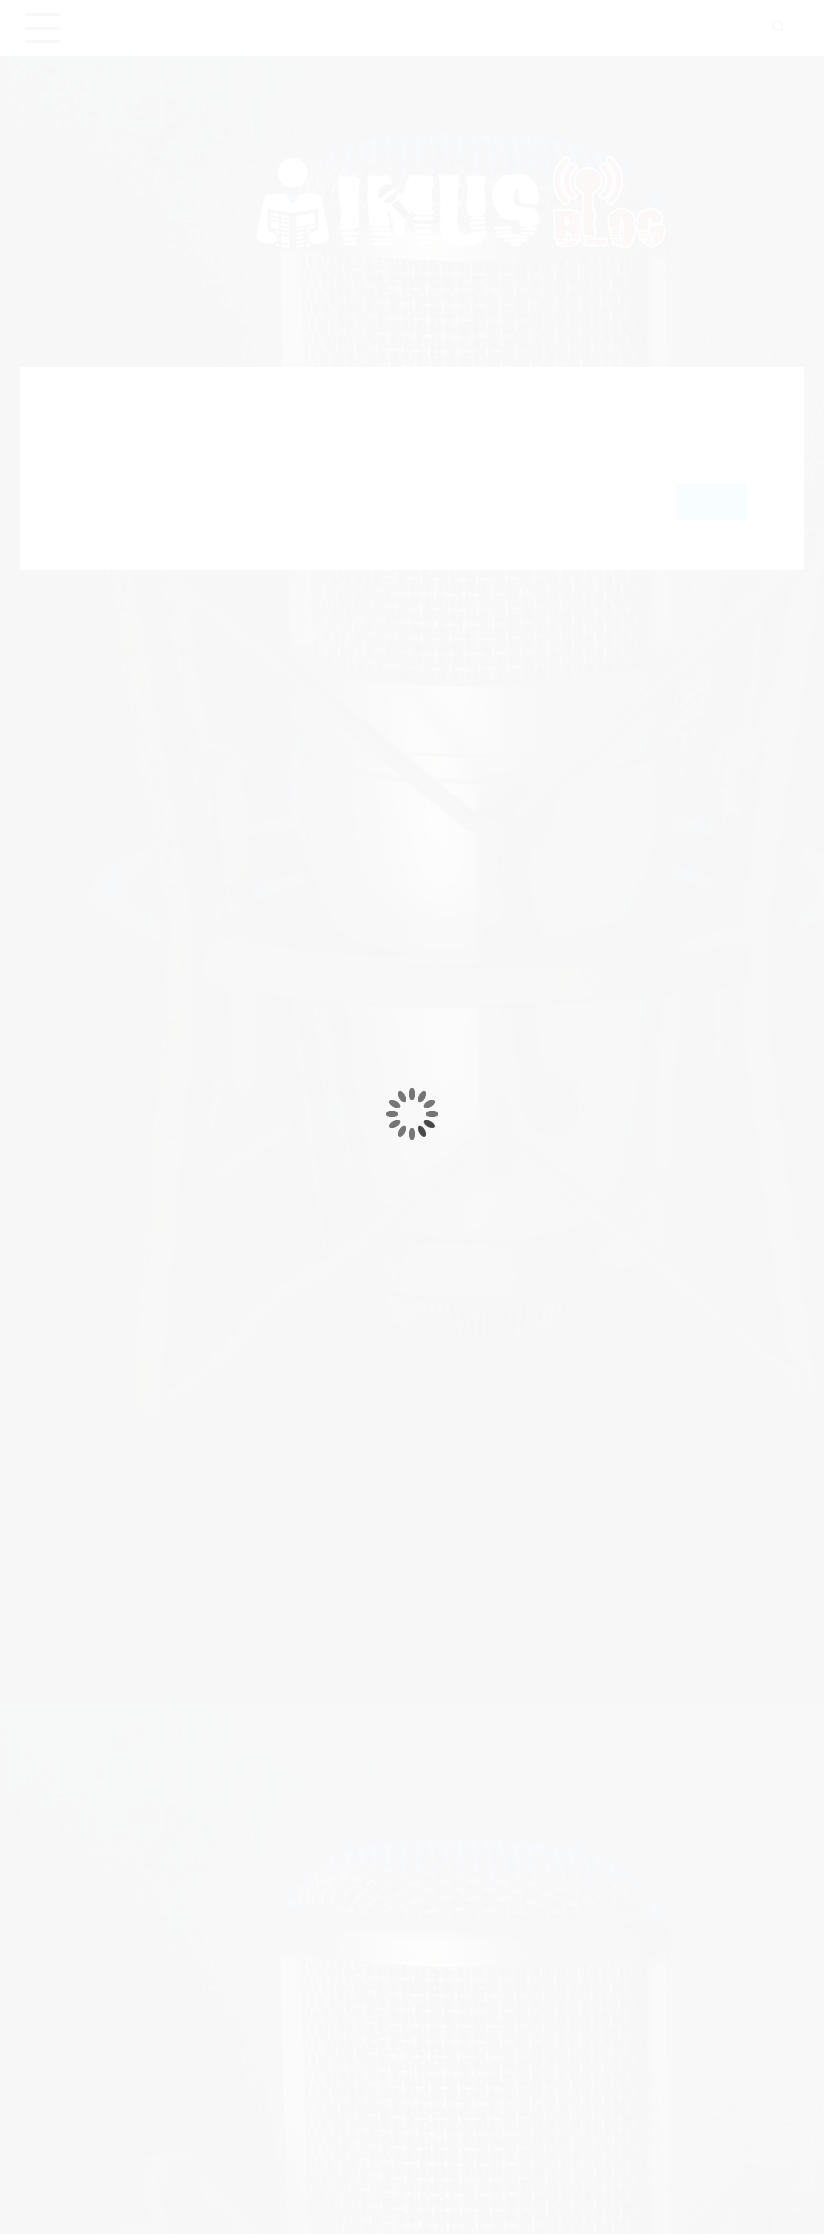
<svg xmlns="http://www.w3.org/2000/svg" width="824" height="2234">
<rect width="100%" height="100%" fill="#fff"/>
<image href="1.png" x="0" y="56" width="824" height="2178"/>
<rect fill="#f8f8f8" x="25" y="13" width="35" height="3" rx="1.5"/>
<rect fill="#f8f8f8" x="25" y="27" width="35" height="3" rx="1.5"/>
<rect fill="#f8f8f8" x="25" y="40" width="35" height="3" rx="1.5"/>
<image href="2.png" x="772" y="20" width="14" height="14"/>
<image href="3.png" x="256" y="156" width="411" height="93"/>
<path fill="#fff" d="M20 367h784v203H20z"/>
<path fill="#f8fdff" d="M676 484h71v36H676z"/>
<image href="4.png" x="386" y="1088" width="52" height="52"/>
</svg>
